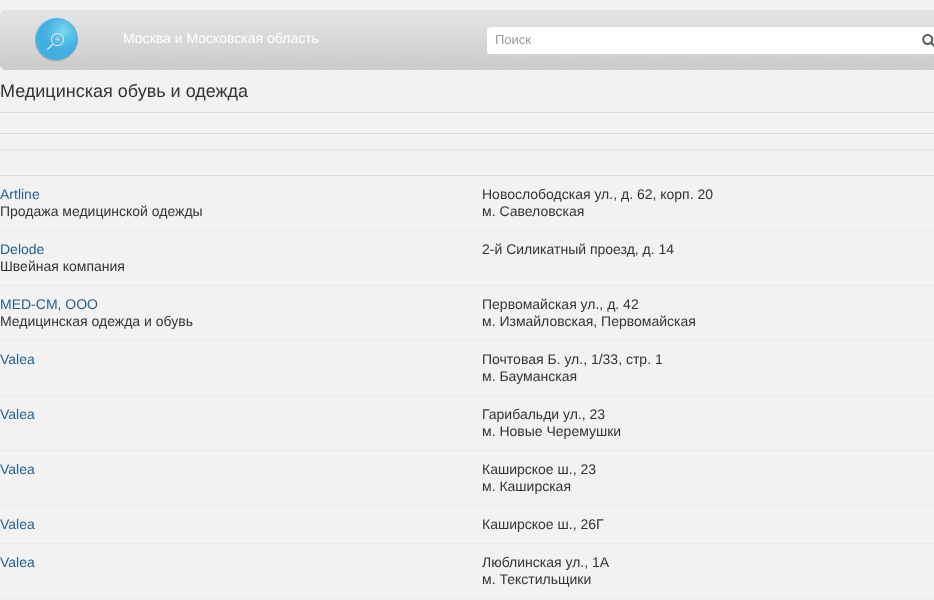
<svg xmlns="http://www.w3.org/2000/svg" width="934" height="600">
<style>
.a{font:14px Liberation Sans;fill:#fff}
.b{font:13px Liberation Sans;fill:#999}
.c{font:18px Liberation Sans;fill:#333}
.d{font:14px Liberation Sans;fill:#276092}
.e{font:14px Liberation Sans;fill:#333}
</style>
<rect width="100%" height="100%" fill="#f2f2f2"/>
<image href="1.png" x="0" y="10" width="5" height="60"/>
<image href="2.png" x="5" y="10" width="929" height="60"/>
<image href="3.png" x="35" y="18" width="43" height="44"/>
<image href="4.png" x="487" y="27" width="5" height="27"/>
<path fill="#fff" d="M492 27h423v27H492z"/>
<image href="5.png" x="915" y="27" width="19" height="27"/>
<path fill="#dadada" d="M0 112h934v1H0z"/>
<path fill="#dadada" d="M0 133h934v1H0z"/>
<path fill="#dadada" d="M0 175h934v1H0z"/>
<path fill="#e5e5e5" d="M0 149h934v1H0z"/>
<path fill="#e9e9e9" d="M0 230h934v1H0z"/>
<path fill="#e9e9e9" d="M0 285h934v1H0z"/>
<path fill="#e9e9e9" d="M0 340h934v1H0z"/>
<path fill="#e9e9e9" d="M0 395h934v1H0z"/>
<path fill="#e9e9e9" d="M0 450h934v1H0z"/>
<path fill="#e9e9e9" d="M0 505h934v1H0z"/>
<path fill="#e9e9e9" d="M0 543h934v1H0z"/>
<path fill="#e9e9e9" d="M0 598h934v1H0z"/>
<text class="a" x="123" y="43">Москва и Московская область</text>
<text class="b" x="495" y="44">Поиск</text>
<text class="c" x="0" y="97">Медицинская обувь и одежда</text>
<text class="d" x="0" y="199">Artline</text>
<text class="e" x="0" y="216">Продажа медицинской одежды</text>
<text class="e" x="482" y="199">Новослободская ул., д. 62, корп. 20</text>
<text class="e" x="482" y="216">м. Савеловская</text>
<text class="d" x="0" y="254">Delode</text>
<text class="e" x="0" y="271">Швейная компания</text>
<text class="e" x="482" y="254">2-й Силикатный проезд, д. 14</text>
<text class="d" x="0" y="309">MED-CM, ООО</text>
<text class="e" x="0" y="326">Медицинская одежда и обувь</text>
<text class="e" x="482" y="309">Первомайская ул., д. 42</text>
<text class="e" x="482" y="326">м. Измайловская, Первомайская</text>
<text class="d" x="0" y="364">Valea</text>
<text class="e" x="482" y="364">Почтовая Б. ул., 1/33, стр. 1</text>
<text class="e" x="482" y="381">м. Бауманская</text>
<text class="d" x="0" y="419">Valea</text>
<text class="e" x="482" y="419">Гарибальди ул., 23</text>
<text class="e" x="482" y="436">м. Новые Черемушки</text>
<text class="d" x="0" y="474">Valea</text>
<text class="e" x="482" y="474">Каширское ш., 23</text>
<text class="e" x="482" y="491">м. Каширская</text>
<text class="d" x="0" y="529">Valea</text>
<text class="e" x="482" y="529">Каширское ш., 26Г</text>
<text class="d" x="0" y="567">Valea</text>
<text class="e" x="482" y="567">Люблинская ул., 1А</text>
<text class="e" x="482" y="584">м. Текстильщики</text>
</svg>
